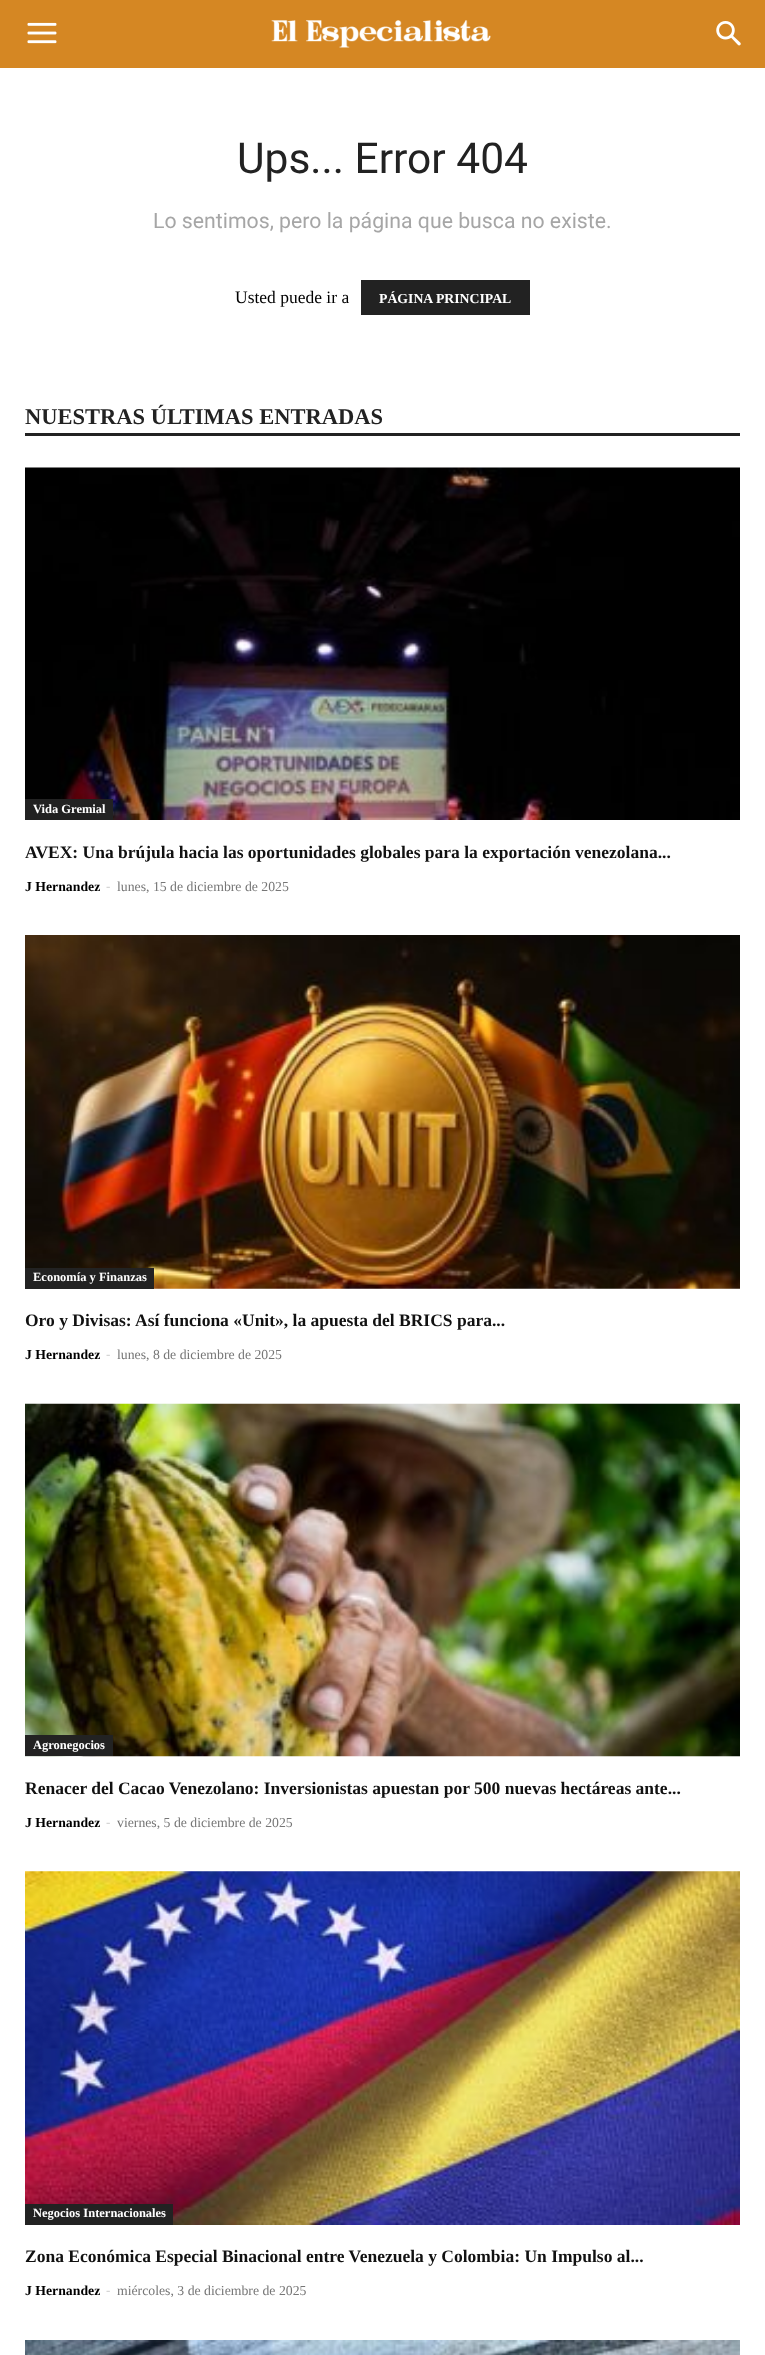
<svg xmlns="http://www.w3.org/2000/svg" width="765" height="2355">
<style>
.a{font:42.5px Roboto;fill:#222}
.b{font:21.25px Roboto;fill:#a6a6a6}
.c{font:17.5px Liberation Serif;fill:#000}
.d{font:bold 13.75px Liberation Serif;fill:#fff}
.e{font:bold 22.5px Liberation Serif;fill:#222}
.f{font:bold 12.5px Liberation Serif;fill:#fff}
.g{font:bold 17.5px Liberation Serif;fill:#111}
.h{font:bold 13.75px Liberation Serif;fill:#000}
.i{font:13.75px Open Sans;fill:#ccc}
.j{font:13.75px Liberation Serif;fill:#767676}
</style>
<rect width="100%" height="100%" fill="#fff"/>
<path fill="#d58723" d="M0 0h765v68H0z"/>
<image href="1.png" x="27" y="22" width="30" height="22"/>
<image href="2.png" x="271" y="20" width="220" height="28"/>
<image href="3.png" x="716" y="21" width="25" height="25"/>
<path fill="#222" d="M361 280h169v35H361z"/>
<path fill="#222" d="M25 433h715v3H25z"/>
<image href="4.png" x="25" y="467" width="715" height="353"/>
<path fill="#222" d="M25 799h88v21H25z"/>
<image href="5.png" x="25" y="935" width="715" height="354"/>
<path fill="#222" d="M25 1268h129v21H25z"/>
<image href="6.png" x="25" y="1403" width="715" height="354"/>
<path fill="#222" d="M25 1735h88v21H25z"/>
<image href="7.png" x="25" y="1871" width="715" height="354"/>
<path fill="#222" d="M25 2204h148v21H25z"/>
<image href="8.png" x="25" y="2340" width="715" height="15"/>
<text class="a" x="237" y="173">Ups... Error 404</text>
<text class="b" x="153" y="228">Lo sentimos, pero la página que busca no existe.</text>
<text class="c" x="235" y="303">Usted puede ir a</text>
<text class="d" x="379" y="303">PÁGINA PRINCIPAL</text>
<text class="e" x="25" y="424">NUESTRAS ÚLTIMAS ENTRADAS</text>
<text class="f" x="33" y="813">Vida Gremial</text>
<text class="g" x="25" y="858">AVEX: Una brújula hacia las oportunidades globales para la exportación venezolana...</text>
<text class="h" x="25" y="891">J Hernandez</text>
<text class="i" x="106" y="891">-</text>
<text class="j" x="117" y="891">lunes, 15 de diciembre de 2025</text>
<text class="f" x="33" y="1281">Economía y Finanzas</text>
<text class="g" x="25" y="1326">Oro y Divisas: Así funciona «Unit», la apuesta del BRICS para...</text>
<text class="h" x="25" y="1359">J Hernandez</text>
<text class="i" x="106" y="1359">-</text>
<text class="j" x="117" y="1359">lunes, 8 de diciembre de 2025</text>
<text class="f" x="33" y="1749">Agronegocios</text>
<text class="g" x="25" y="1794">Renacer del Cacao Venezolano: Inversionistas apuestan por 500 nuevas hectáreas ante...</text>
<text class="h" x="25" y="1827">J Hernandez</text>
<text class="i" x="106" y="1827">-</text>
<text class="j" x="117" y="1827">viernes, 5 de diciembre de 2025</text>
<text class="f" x="33" y="2217">Negocios Internacionales</text>
<text class="g" x="25" y="2262">Zona Económica Especial Binacional entre Venezuela y Colombia: Un Impulso al...</text>
<text class="h" x="25" y="2295">J Hernandez</text>
<text class="i" x="106" y="2295">-</text>
<text class="j" x="117" y="2295">miércoles, 3 de diciembre de 2025</text>
</svg>
